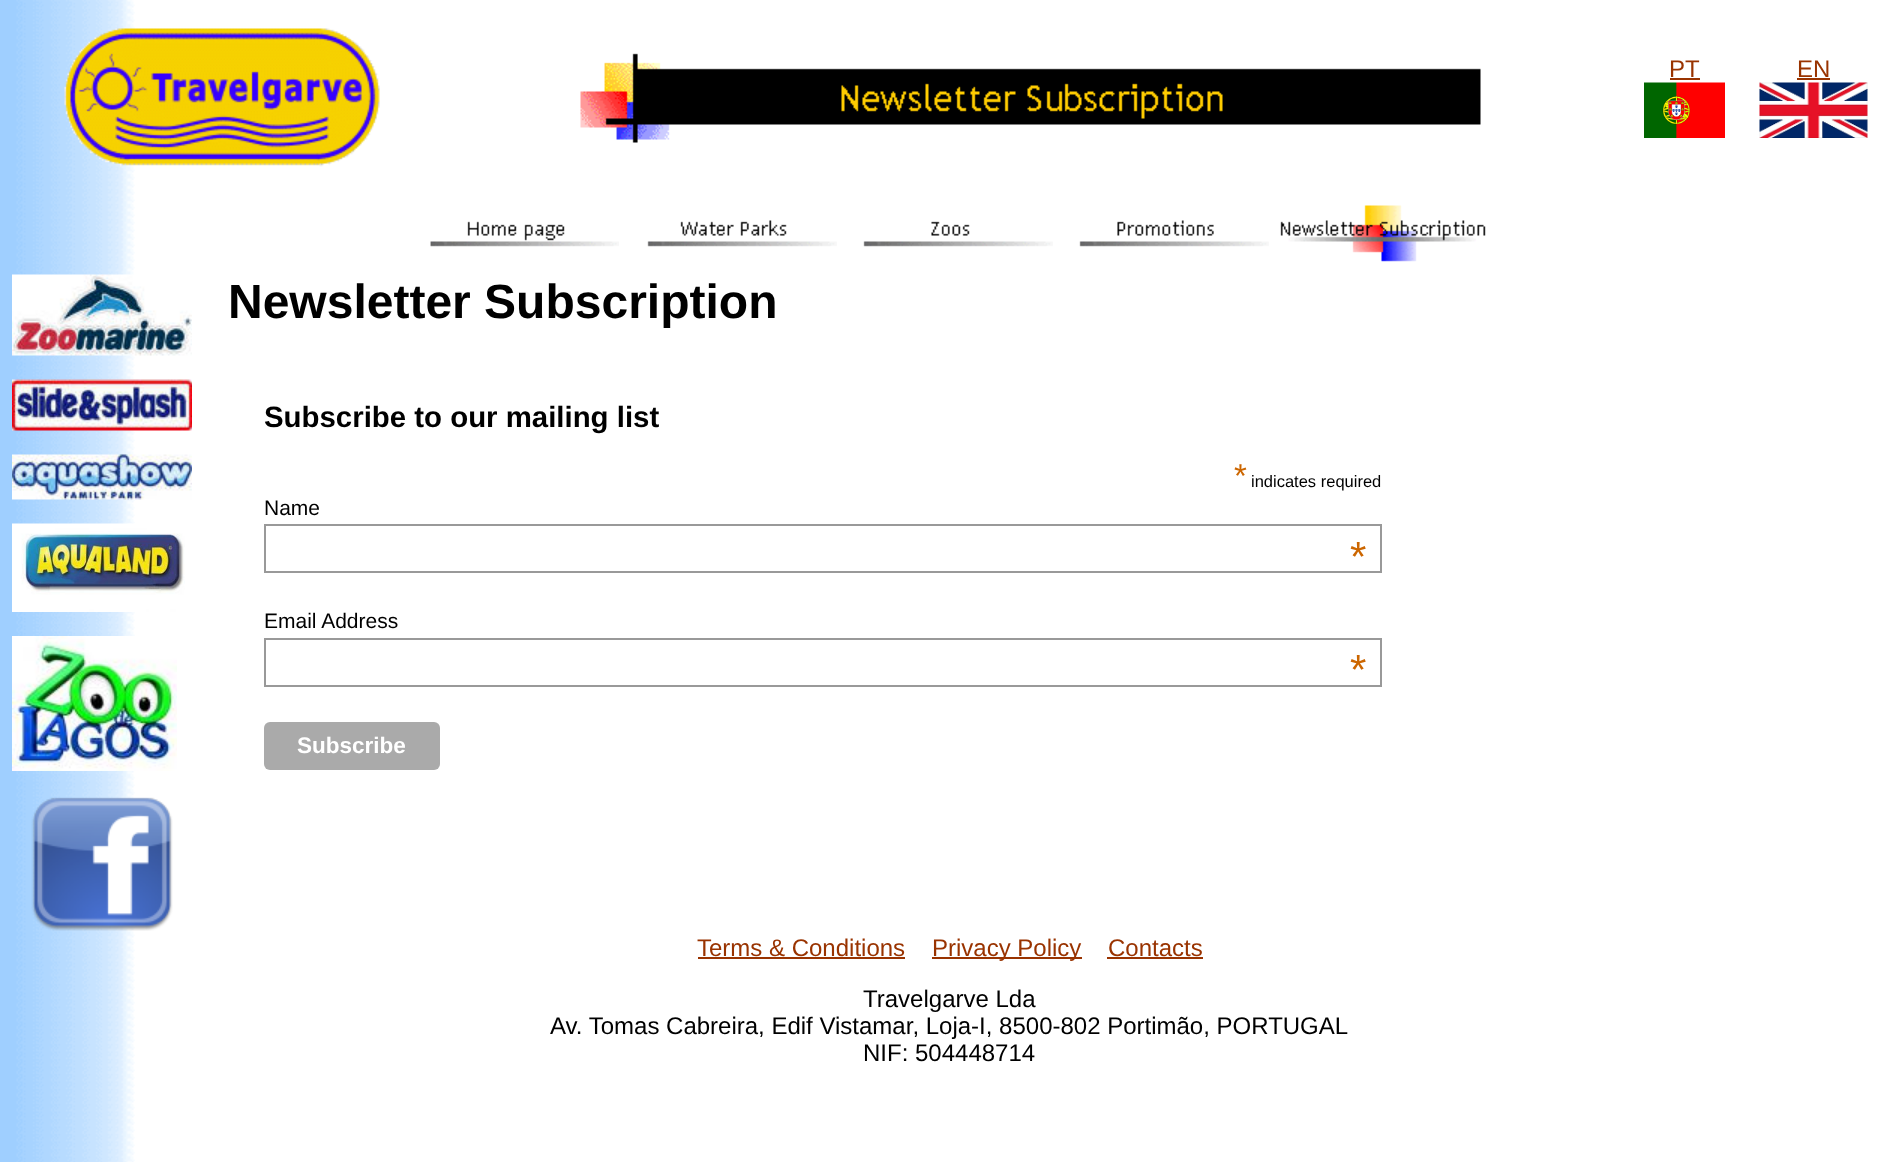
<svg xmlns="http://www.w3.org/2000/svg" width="1899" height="1162">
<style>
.a{font:24px Liberation Sans;fill:#930}
.b{font:bold 48px Liberation Sans;fill:#000}
.c{font:bold 29.4px Liberation Sans;fill:#000}
.d{font:33px Liberation Sans;fill:#c60}
.e{font:16.5px Liberation Sans;fill:#000}
.f{font:21px Liberation Sans;fill:#000}
.g{font:42px Liberation Sans;fill:#c60}
.h{font:bold 22.5px Liberation Sans;fill:#fff}
.i{font:24px Liberation Sans;fill:#000}
</style>
<rect width="100%" height="100%" fill="#fff"/>
<image href="1.png" x="0" y="0" width="135" height="1162"/>
<image href="2.png" x="64" y="28" width="316" height="139"/>
<image href="3.png" x="580" y="53" width="901" height="90"/>
<path fill="#930" d="M1670 78h30v2H1670z"/>
<image href="4.png" x="1644" y="82" width="81" height="56"/>
<path fill="#930" d="M1797 78h33v2H1797z"/>
<image href="5.png" x="1759" y="82" width="109" height="56"/>
<image href="6.png" x="430" y="221" width="189" height="26"/>
<image href="7.png" x="647" y="220" width="190" height="27"/>
<image href="8.png" x="863" y="221" width="190" height="26"/>
<image href="9.png" x="1079" y="220" width="190" height="27"/>
<image href="10.png" x="1280" y="205" width="206" height="57"/>
<image href="11.png" x="12" y="274" width="180" height="82"/>
<image href="12.png" x="12" y="379" width="180" height="52"/>
<image href="13.png" x="12" y="454" width="180" height="46"/>
<image href="14.png" x="12" y="523" width="173" height="89"/>
<image href="15.png" x="12" y="636" width="165" height="135"/>
<image href="16.png" x="31" y="797" width="142" height="134"/>
<path fill="none" stroke="#999" stroke-width="2" d="M265 525h1116v47H265z"/>
<path fill="none" stroke="#999" stroke-width="2" d="M265 639h1116v47H265z"/>
<rect fill="#aaa" x="264" y="722" width="176" height="48" rx="6"/>
<path fill="#930" d="M698 957h207v2H698z"/>
<path fill="#930" d="M932 957h150v2H932z"/>
<path fill="#930" d="M1107 957h96v2H1107z"/>
<text class="a" x="1669" y="77">PT</text>
<text class="a" x="1797" y="77">EN</text>
<text class="b" x="228" y="318">Newsletter Subscription</text>
<text class="c" x="264" y="427">Subscribe to our mailing list</text>
<text class="d" x="1234" y="487">*</text>
<text class="e" x="1251" y="487">indicates required</text>
<text class="f" x="264" y="515">Name</text>
<text class="g" x="1350" y="571">*</text>
<text class="f" x="264" y="628">Email Address</text>
<text class="g" x="1350" y="684">*</text>
<text class="h" x="297" y="753">Subscribe</text>
<text class="a" x="697" y="956">Terms &amp; Conditions</text>
<text class="a" x="932" y="956">Privacy Policy</text>
<text class="a" x="1108" y="956">Contacts</text>
<text class="i" x="863" y="1007">Travelgarve Lda</text>
<text class="i" x="550" y="1034">Av. Tomas Cabreira, Edif Vistamar, Loja-I, 8500-802 Portimão, PORTUGAL</text>
<text class="i" x="863" y="1061">NIF: 504448714</text>
</svg>
